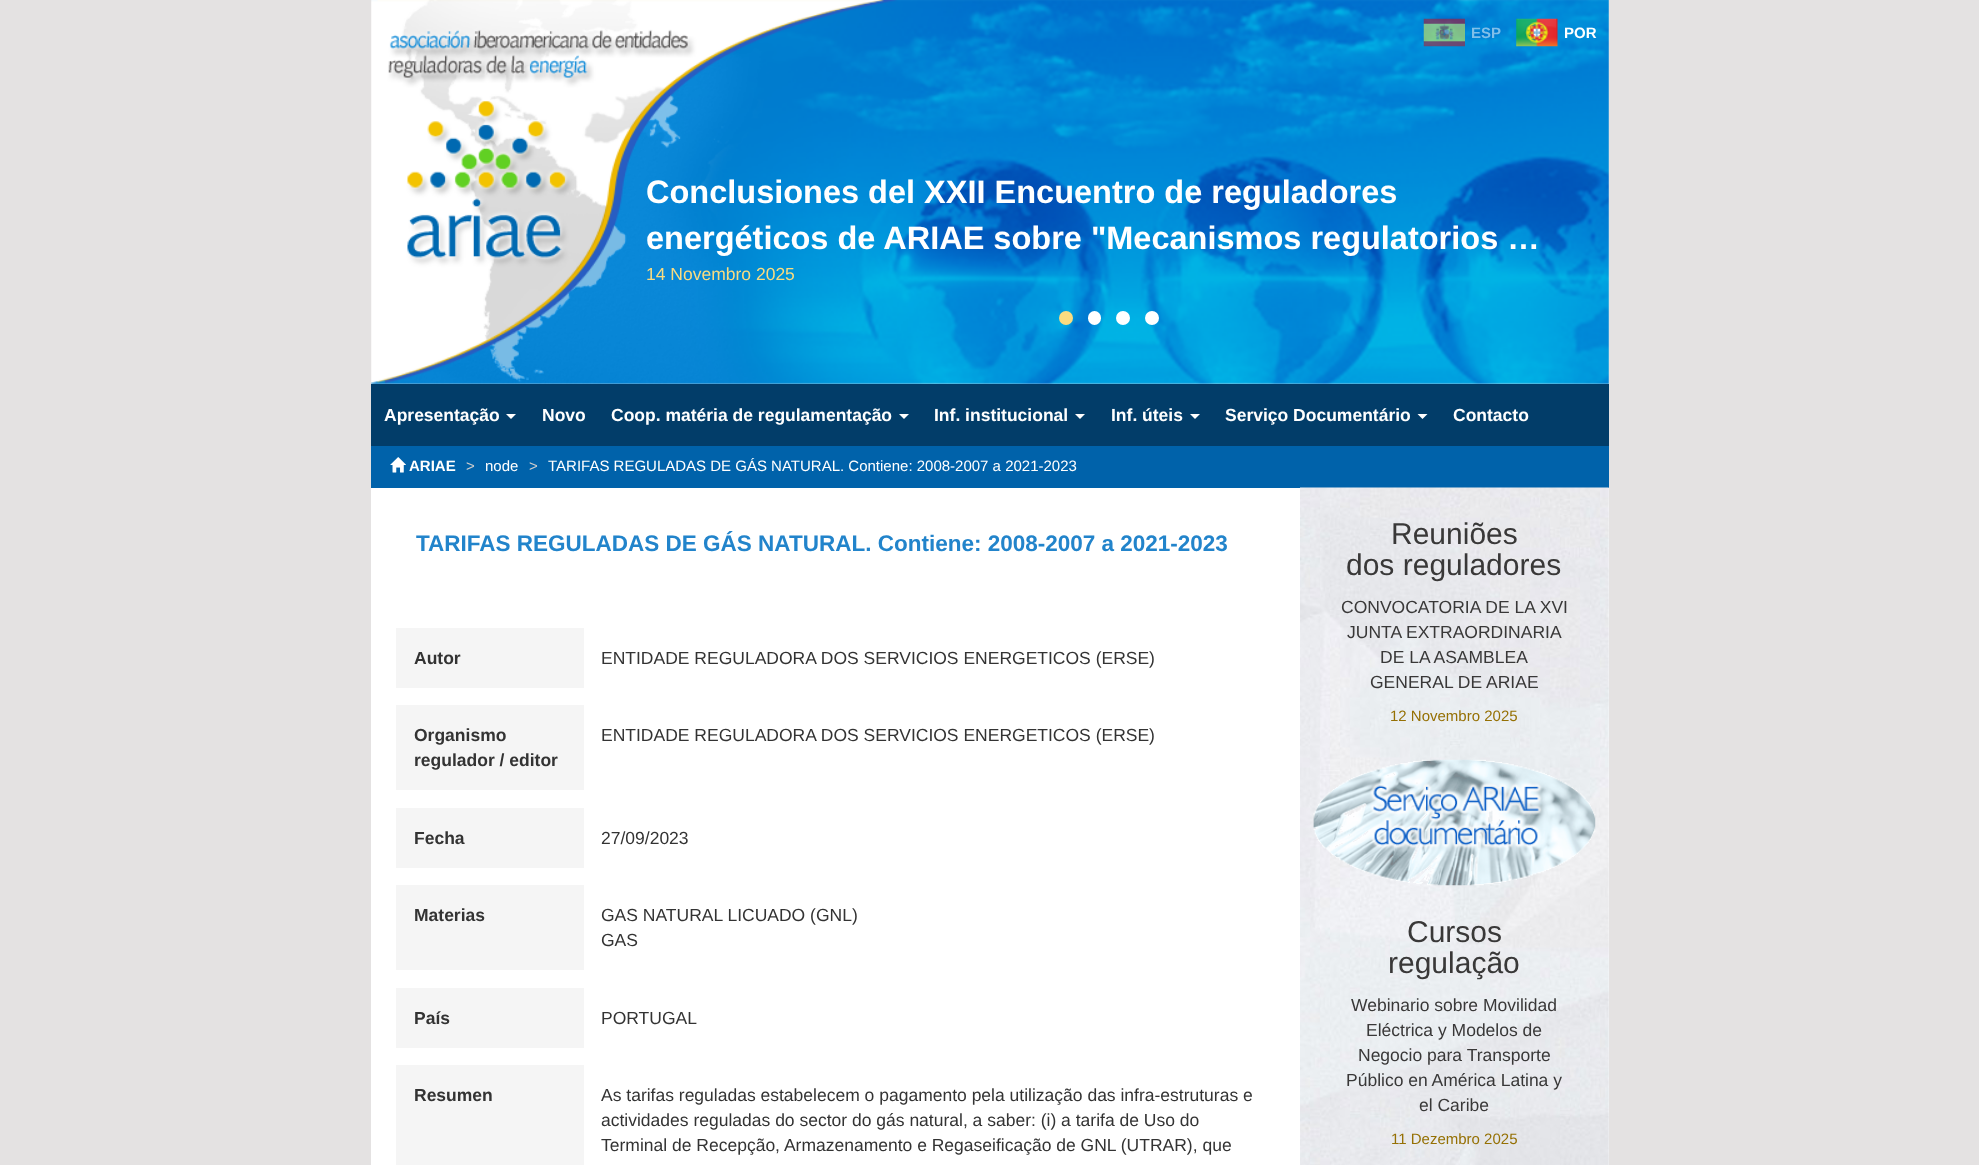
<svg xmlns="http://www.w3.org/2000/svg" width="1979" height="1165">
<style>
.a{font:bold 15px Liberation Sans;fill:#80bfe9}
.b{font:bold 15px Liberation Sans;fill:#fff}
.c{font:bold 32.5px Liberation Sans;fill:#fff}
.d{font:17.5px Liberation Sans;fill:#fadc80}
.e{font:bold 17.5px Liberation Sans;fill:#fff}
.f{font:15px Liberation Sans;fill:#ccc}
.g{font:15px Liberation Sans;fill:#fff}
.h{font:bold 22.5px Liberation Sans;fill:#2284cb}
.i{font:bold 17.5px Liberation Sans;fill:#333}
.j{font:17.5px Liberation Sans;fill:#333}
.k{font:30px Liberation Sans;fill:#393838}
.l{font:17.5px Liberation Sans;fill:#393838}
.m{font:15px Liberation Sans;fill:#957004}
</style>
<rect width="100%" height="100%" fill="#e4e2e2"/>
<image href="1.png" x="371" y="0" width="1238" height="384"/>
<image href="2.png" x="1423" y="18" width="42" height="29"/>
<image href="3.png" x="1516" y="18" width="42" height="29"/>
<circle fill="#fadc80" cx="1066" cy="318" r="7"/>
<rect fill="#fff" x="1088" y="311" width="13" height="14" rx="6.5"/>
<circle fill="#fff" cx="1123" cy="318" r="7"/>
<circle fill="#fff" cx="1152" cy="318" r="7"/>
<path fill="#023d69" d="M371 384h1238v62H371z"/>
<path fill="#fff" d="M506 414h10l-5 5z"/>
<path fill="#fff" d="M899 414h10l-5 5z"/>
<path fill="#fff" d="M1075 414h10l-5 5z"/>
<path fill="#fff" d="M1190 414h10l-5 5z"/>
<path fill="#fff" d="M1417.5 414h10l-5 5z"/>
<path fill="#0062aa" d="M371 446h1238v42H371z"/>
<image href="4.png" x="390" y="457" width="16" height="16"/>
<path fill="#fff" d="M371 488h1238v677H371z"/>
<path fill="#f5f5f5" d="M396 628h188v60H396z"/>
<path fill="#f5f5f5" d="M396 705h188v85H396z"/>
<path fill="#f5f5f5" d="M396 808h188v60H396z"/>
<path fill="#f5f5f5" d="M396 885h188v85H396z"/>
<path fill="#f5f5f5" d="M396 988h188v60H396z"/>
<path fill="#f5f5f5" d="M396 1065h188v100H396z"/>
<image href="5.png" x="1300" y="487" width="309" height="678"/>
<image href="6.png" x="1313" y="759" width="283" height="127"/>
<text class="a" x="1471" y="38">ESP</text>
<text class="b" x="1564" y="38">POR</text>
<text class="c" x="646" y="203">Conclusiones del XXII Encuentro de reguladores</text>
<text class="c" x="646" y="249">energéticos de ARIAE sobre "Mecanismos regulatorios …</text>
<text class="d" x="646" y="280">14 Novembro 2025</text>
<text class="e" x="384" y="421">Apresentação</text>
<text class="e" x="542" y="421">Novo</text>
<text class="e" x="611" y="421">Coop. matéria de regulamentação</text>
<text class="e" x="934" y="421">Inf. institucional</text>
<text class="e" x="1111" y="421">Inf. úteis</text>
<text class="e" x="1225" y="421">Serviço Documentário</text>
<text class="e" x="1453" y="421">Contacto</text>
<text class="b" x="409" y="471">ARIAE</text>
<text class="f" x="466" y="471">&gt;</text>
<text class="g" x="485" y="471">node</text>
<text class="f" x="529" y="471">&gt;</text>
<text class="g" x="548" y="471">TARIFAS REGULADAS DE GÁS NATURAL. Contiene: 2008-2007 a 2021-2023</text>
<text class="h" x="416" y="551">TARIFAS REGULADAS DE GÁS NATURAL. Contiene: 2008-2007 a 2021-2023</text>
<text class="i" x="414" y="664">Autor</text>
<text class="j" x="601" y="664">ENTIDADE REGULADORA DOS SERVICIOS ENERGETICOS (ERSE)</text>
<text class="i" x="414" y="741">Organismo</text>
<text class="i" x="414" y="766">regulador / editor</text>
<text class="j" x="601" y="741">ENTIDADE REGULADORA DOS SERVICIOS ENERGETICOS (ERSE)</text>
<text class="i" x="414" y="844">Fecha</text>
<text class="j" x="601" y="844">27/09/2023</text>
<text class="i" x="414" y="921">Materias</text>
<text class="j" x="601" y="921">GAS NATURAL LICUADO (GNL)</text>
<text class="j" x="601" y="946">GAS</text>
<text class="i" x="414" y="1024">País</text>
<text class="j" x="601" y="1024">PORTUGAL</text>
<text class="i" x="414" y="1101">Resumen</text>
<text class="j" x="601" y="1101">As tarifas reguladas estabelecem o pagamento pela utilização das infra-estruturas e</text>
<text class="j" x="601" y="1126">actividades reguladas do sector do gás natural, a saber: (i) a tarifa de Uso do</text>
<text class="j" x="601" y="1151">Terminal de Recepção, Armazenamento e Regaseificação de GNL (UTRAR), que</text>
<text class="k" x="1391" y="544">Reuniões</text>
<text class="k" x="1346" y="575">dos reguladores</text>
<text class="l" x="1341" y="613">CONVOCATORIA DE LA XVI</text>
<text class="l" x="1347" y="638">JUNTA EXTRAORDINARIA</text>
<text class="l" x="1380" y="663">DE LA ASAMBLEA</text>
<text class="l" x="1370" y="688">GENERAL DE ARIAE</text>
<text class="m" x="1390" y="721">12 Novembro 2025</text>
<text class="k" x="1407" y="942">Cursos</text>
<text class="k" x="1388" y="973">regulação</text>
<text class="l" x="1351" y="1011">Webinario sobre Movilidad</text>
<text class="l" x="1366" y="1036">Eléctrica y Modelos de</text>
<text class="l" x="1358" y="1061">Negocio para Transporte</text>
<text class="l" x="1346" y="1086">Público en América Latina y</text>
<text class="l" x="1419" y="1111">el Caribe</text>
<text class="m" x="1391" y="1144">11 Dezembro 2025</text>
</svg>
